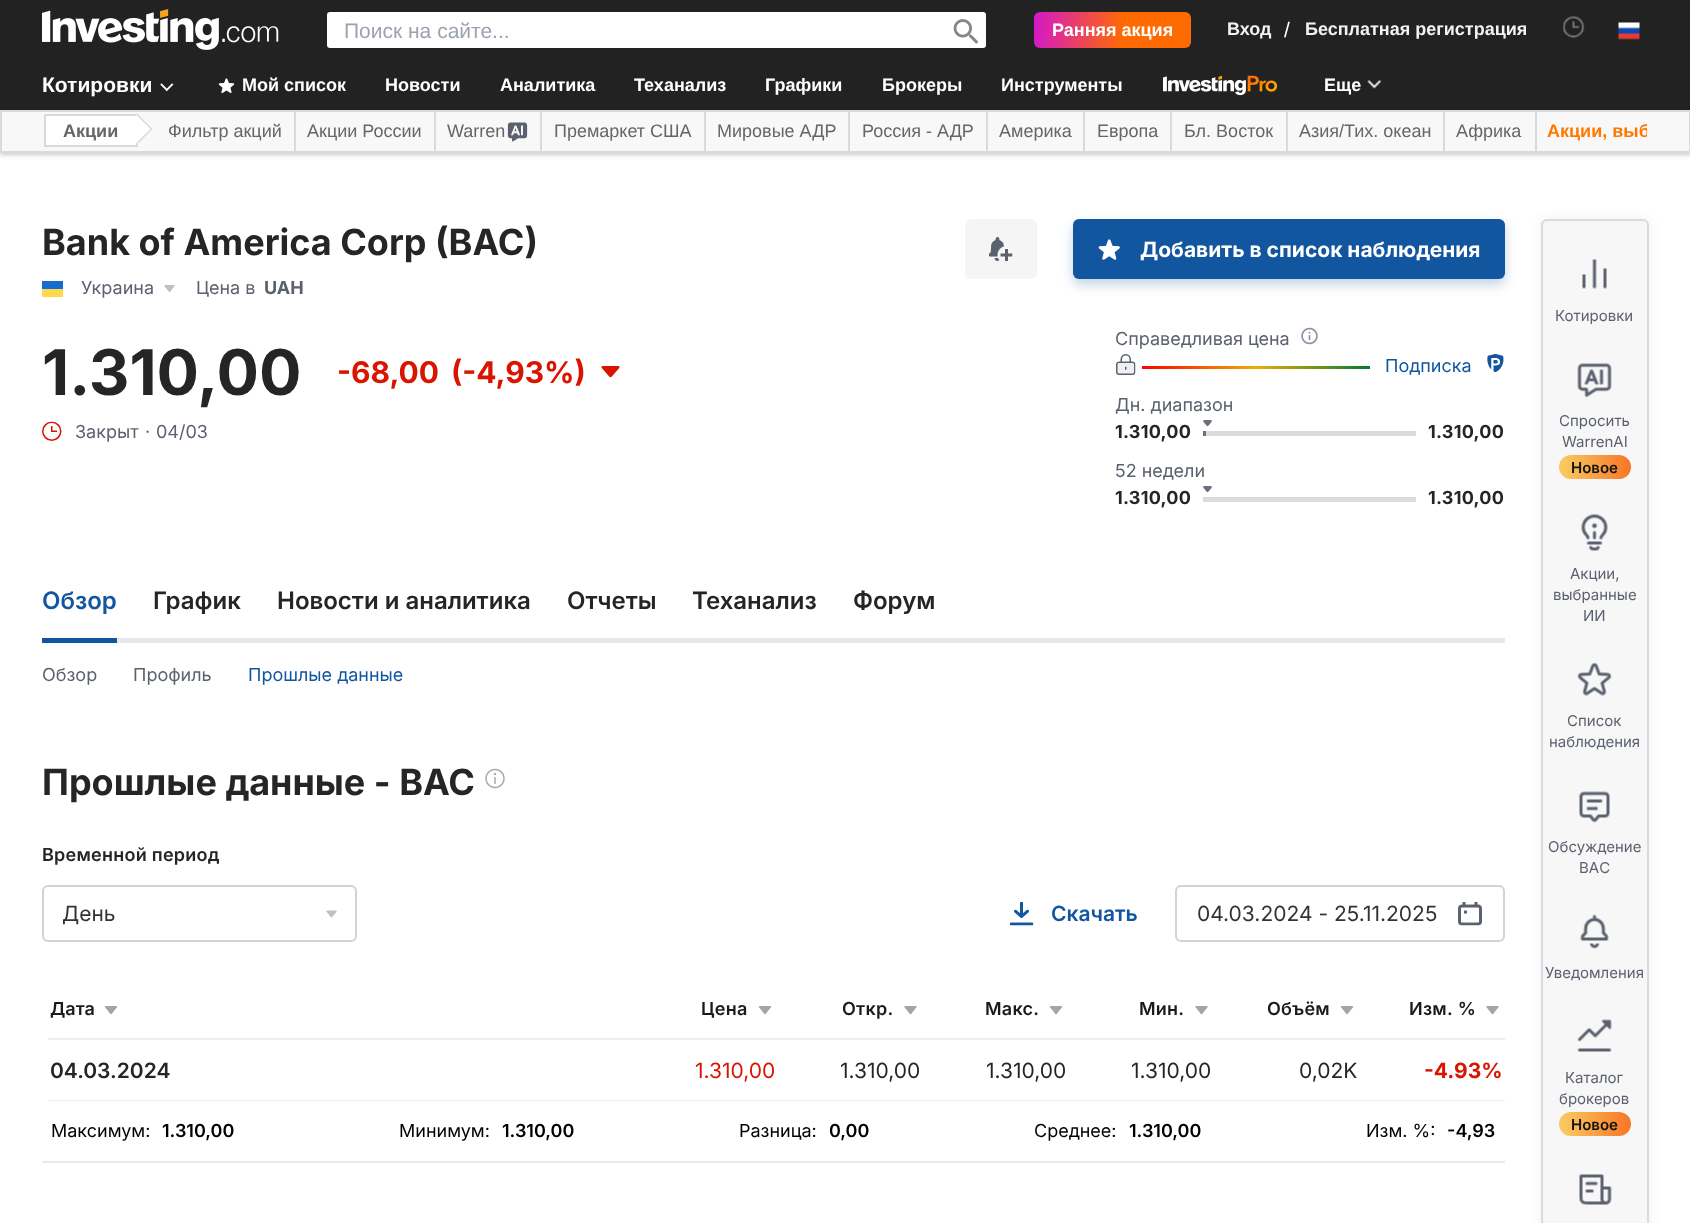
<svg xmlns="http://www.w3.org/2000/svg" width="1690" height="1223">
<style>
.a{font:21px Liberation Sans;fill:#9ca3af}
.b{font:bold 18px Liberation Sans;fill:#fff}
.c{font:bold 18px Liberation Sans;fill:#f2f2f2}
.d{font:21px Liberation Sans;fill:#fff}
.e{font:bold 21px Liberation Sans;fill:#fff}
.f{font:bold 18px Liberation Sans;fill:#666}
.g{font:18px Liberation Sans;fill:#666}
.h{font:bold 18px Liberation Sans;fill:#ff7901}
.i{font:bold 36px Inter;fill:#232526}
.j{font:18px Inter;fill:#5b616e}
.k{font:bold 18px Inter;fill:#5b616e}
.l{font:bold 21px Inter;fill:#fff}
.m{font:bold 63px Inter;fill:#232526}
.n{font:bold 30px Inter;fill:#d91400}
.o{font:18px Inter;fill:#1256a0}
.p{font:bold 18px Inter;letter-spacing:0.25px;fill:#232526}
.q{font:600 24px Inter;fill:#1256a0}
.r{font:600 24px Inter;fill:#232526}
.s{font:600 18px Inter;letter-spacing:0.25px;fill:#232526}
.t{font:21px Inter;fill:#333}
.u{font:600 21px Inter;fill:#1256a0}
.v{font:600 18px Inter;fill:#181c21}
.w{font:600 18px Inter;letter-spacing:0.25px;fill:#181c21}
.x{font:600 21px Inter;fill:#232526}
.y{font:21px Inter;fill:#d91400}
.z{font:21px Inter;fill:#232526}
.a1{font:bold 21px Inter;fill:#d91400}
.b1{font:18px Inter;fill:#000}
.c1{font:600 18px Inter;fill:#000}
.d1{font:15px Inter;fill:#5b616e}
.e1{font:600 15px Inter;fill:#111}
</style>
<defs>
<linearGradient id="g1" gradientUnits="userSpaceOnUse" x1="1192" y1="36" x2="1008" y2="23"><stop offset="0.37" stop-color="#ff6b00"/><stop offset="1" stop-color="#c800ff"/></linearGradient>
<linearGradient id="g2" gradientUnits="userSpaceOnUse" x1="1142" y1="368" x2="1370" y2="368"><stop offset="0" stop-color="#f00"/><stop offset="0.5" stop-color="#ebae04"/><stop offset="1" stop-color="#007c32"/></linearGradient>
<linearGradient id="g3" gradientUnits="userSpaceOnUse" x1="1558" y1="469" x2="1642" y2="463"><stop offset="0.07" stop-color="#fac761"/><stop offset="1" stop-color="#f7681c"/></linearGradient>
<linearGradient id="g4" gradientUnits="userSpaceOnUse" x1="1558" y1="1126" x2="1642" y2="1120"><stop offset="0.07" stop-color="#fac761"/><stop offset="1" stop-color="#f7681c"/></linearGradient>
<clipPath id="clip1"><path d="M44 111h1603v41H44z"/></clipPath>
</defs>
<rect width="100%" height="100%" fill="#fff"/>
<path fill="#222" d="M0 0h1690v110H0z"/>
<image href="1.png" x="42" y="9" width="237" height="41"/>
<rect fill="#fff" x="327" y="12" width="659" height="36" rx="3"/>
<image href="2.png" x="953" y="19" width="26" height="25"/>
<rect fill="url(#g1)" x="1034" y="12" width="157" height="36" rx="6"/>
<image href="3.png" x="1562" y="16" width="23" height="22"/>
<image href="4.png" x="1618" y="22" width="22" height="18"/>
<image href="5.png" x="160" y="83" width="14" height="9"/>
<image href="6.png" x="218" y="78" width="17" height="15"/>
<image href="7.png" x="1163" y="75" width="115" height="21"/>
<image href="8.png" x="1367" y="80" width="15" height="9"/>
<path fill="#00000033" filter="blur(2px)" d="M0 111h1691v44H0z"/>
<path fill="#f8f8f8" stroke="#dadada" stroke-width="2" d="M1 111h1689v41H1z"/>
<path fill="#fff" stroke="#dadada" stroke-width="2" d="M45 115h92v31H45z"/>
<path fill="#fff" d="M137.5 114l15 15l-15 15l-14.5-15z"/>
<path fill="#dadada" d="M137.5 114l15 15l-1 1l-15-15z"/>
<path fill="#dadada" d="M151.5 128l1 1l-15 15l-1-1z"/>
<path fill="#dadada" d="M294 111h2v41H294z"/>
<path fill="#dadada" d="M434 111h2v41H434z"/>
<path fill="#dadada" d="M540 111h2v41H540z"/>
<image href="9.png" x="507" y="122" width="21" height="20"/>
<path fill="#dadada" d="M704 111h2v41H704z"/>
<path fill="#dadada" d="M848 111h2v41H848z"/>
<path fill="#dadada" d="M986 111h2v41H986z"/>
<path fill="#dadada" d="M1083 111h2v41H1083z"/>
<path fill="#dadada" d="M1170 111h2v41H1170z"/>
<path fill="#dadada" d="M1286 111h2v41H1286z"/>
<path fill="#dadada" d="M1443 111h2v41H1443z"/>
<path fill="#dadada" d="M1535 111h2v41H1535z"/>
<image href="10.png" x="42" y="281" width="21" height="16"/>
<image href="11.png" x="164" y="285" width="11" height="7"/>
<rect fill="#f5f5f5" x="965" y="219" width="72" height="60" rx="6"/>
<image href="12.png" x="989" y="237" width="24" height="24"/>
<rect fill="#1256a040" filter="blur(6px)" x="1073" y="225" width="432" height="60" rx="6"/>
<rect fill="#1256a0" x="1073" y="219" width="432" height="60" rx="6"/>
<image href="13.png" x="1098" y="239" width="22" height="21"/>
<image href="14.png" x="601" y="366" width="19" height="12"/>
<image href="15.png" x="42" y="421" width="20" height="20"/>
<image href="16.png" x="1301" y="327" width="17" height="18"/>
<image href="17.png" x="1116" y="354" width="20" height="21"/>
<path fill="url(#g2)" d="M1142 366h228v3H1142z"/>
<image href="18.png" x="1487" y="354" width="17" height="18"/>
<path fill="#dadbde" d="M1203 431h213v5H1203z"/>
<image href="19.png" x="1203" y="420" width="9" height="7"/>
<path fill="#6a707c" d="M1203 431h3v5H1203z"/>
<path fill="#dadbde" d="M1203 497h213v5H1203z"/>
<image href="19.png" x="1203" y="486" width="9" height="7"/>
<path fill="#e6e9eb" d="M117 638h1388v5H117z"/>
<path fill="#1256a0" d="M42 638h75v5H42z"/>
<image href="20.png" x="485" y="768" width="20" height="21"/>
<image href="21.png" x="326" y="910" width="11" height="8"/>
<rect fill="none" stroke="#cfd4da" stroke-width="2" x="43" y="886" width="313" height="55" rx="5"/>
<image href="22.png" x="1010" y="902" width="24" height="24"/>
<rect fill="none" stroke="#cfd4da" stroke-width="2" x="1176" y="886" width="328" height="55" rx="5"/>
<image href="23.png" x="1458" y="902" width="24" height="24"/>
<image href="24.png" x="104" y="1006" width="14" height="9"/>
<image href="24.png" x="758" y="1006" width="14" height="9"/>
<image href="25.png" x="904" y="1006" width="13" height="9"/>
<image href="24.png" x="1049" y="1006" width="14" height="9"/>
<image href="25.png" x="1195" y="1006" width="13" height="9"/>
<image href="24.png" x="1340" y="1006" width="14" height="9"/>
<image href="25.png" x="1486" y="1006" width="13" height="9"/>
<path fill="#ecedef" d="M48 1038h1457v2H48z"/>
<path fill="#ecedef" d="M48 1100h1457v1H48z"/>
<path fill="#e4eaf1" d="M42 1161h1463v2H42z"/>
<rect fill="#23252612" filter="blur(6px)" x="1541" y="219" width="108" height="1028" rx="6"/>
<rect fill="#f7f7f8" stroke="#d9dcdf" stroke-width="2" x="1542" y="220" width="106" height="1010" rx="5"/>
<image href="26.png" x="1582" y="259" width="25" height="30"/>
<image href="27.png" x="1577" y="363" width="35" height="35"/>
<rect fill="url(#g3)" x="1559" y="455" width="72" height="24" rx="12"/>
<image href="28.png" x="1581" y="514" width="27" height="37"/>
<image href="29.png" x="1577" y="662" width="35" height="34"/>
<image href="30.png" x="1579" y="791" width="31" height="32"/>
<image href="31.png" x="1580" y="914" width="29" height="35"/>
<image href="32.png" x="1577" y="1019" width="35" height="33"/>
<rect fill="url(#g4)" x="1559" y="1112" width="72" height="24" rx="12"/>
<image href="33.png" x="1579" y="1174" width="33" height="31"/>
<text class="a" x="344" y="38">Поиск на сайте...</text>
<text class="b" x="1052" y="36">Ранняя акция</text>
<text class="c" x="1227" y="35">Вход</text>
<text class="d" x="1284" y="37">/</text>
<text class="c" x="1305" y="35">Бесплатная регистрация</text>
<text class="e" x="42" y="92">Котировки</text>
<text class="b" x="242" y="91">Мой список</text>
<text class="b" x="385" y="91">Новости</text>
<text class="b" x="500" y="91">Аналитика</text>
<text class="b" x="634" y="91">Теханализ</text>
<text class="b" x="765" y="91">Графики</text>
<text class="b" x="882" y="91">Брокеры</text>
<text class="b" x="1001" y="91">Инструменты</text>
<text class="b" x="1324" y="91">Еще</text>
<text class="f" x="63" y="137">Акции</text>
<text class="g" x="168" y="137">Фильтр акций</text>
<text class="g" x="307" y="137">Акции России</text>
<text class="g" x="447" y="137">Warren</text>
<text class="g" x="554" y="137">Премаркет США</text>
<text class="g" x="717" y="137">Мировые АДР</text>
<text class="g" x="862" y="137">Россия - АДР</text>
<text class="g" x="999" y="137">Америка</text>
<text class="g" x="1097" y="137">Европа</text>
<text class="g" x="1184" y="137">Бл. Восток</text>
<text class="g" x="1299" y="137">Азия/Тих. океан</text>
<text class="g" x="1456" y="137">Африка</text>
<g clip-path="url(#clip1)">
<text class="h" x="1547" y="137">Акции, выб</text>
</g>
<text class="i" x="42" y="255">Bank of America Corp (BAC)</text>
<text class="j" x="81" y="294">Украина</text>
<text class="j" x="196" y="294">Цена в</text>
<text class="k" x="264" y="294">UAH</text>
<text class="l" x="1140" y="257">Добавить в список наблюдения</text>
<text class="m" x="42" y="395">1.310,00</text>
<text class="n" x="337" y="383">-68,00</text>
<text class="n" x="451" y="383">(-4,93%)</text>
<text class="j" x="75" y="438">Закрыт</text>
<text class="j" x="145" y="438">·</text>
<text class="j" x="156" y="438">04/03</text>
<text class="j" x="1115" y="345">Справедливая цена</text>
<text class="o" x="1385" y="372">Подписка</text>
<text class="j" x="1115" y="411">Дн. диапазон</text>
<text class="p" x="1115" y="438">1.310,00</text>
<text class="p" x="1428" y="438">1.310,00</text>
<text class="j" x="1115" y="477">52 недели</text>
<text class="p" x="1115" y="504">1.310,00</text>
<text class="p" x="1428" y="504">1.310,00</text>
<text class="q" x="42" y="609">Обзор</text>
<text class="r" x="153" y="609">График</text>
<text class="r" x="277" y="609">Новости и аналитика</text>
<text class="r" x="567" y="609">Отчеты</text>
<text class="r" x="692" y="609">Теханализ</text>
<text class="r" x="853" y="609">Форум</text>
<text class="j" x="42" y="681">Обзор</text>
<text class="j" x="133" y="681">Профиль</text>
<text class="o" x="248" y="681">Прошлые данные</text>
<text class="i" x="42" y="795">Прошлые данные - BAC</text>
<text class="s" x="42" y="861">Временной период</text>
<text class="t" x="62" y="921">День</text>
<text class="u" x="1051" y="921">Скачать</text>
<text class="t" x="1197" y="921">04.03.2024 - 25.11.2025</text>
<text class="v" x="50" y="1015">Дата</text>
<text class="w" x="701" y="1015">Цена</text>
<text class="w" x="842" y="1015">Откр.</text>
<text class="w" x="985" y="1015">Макс.</text>
<text class="w" x="1139" y="1015">Мин.</text>
<text class="w" x="1267" y="1015">Объём</text>
<text class="w" x="1409" y="1015">Изм. %</text>
<text class="x" x="50" y="1078">04.03.2024</text>
<text class="y" x="695" y="1078">1.310,00</text>
<text class="z" x="840" y="1078">1.310,00</text>
<text class="z" x="986" y="1078">1.310,00</text>
<text class="z" x="1131" y="1078">1.310,00</text>
<text class="z" x="1299" y="1078">0,02K</text>
<text class="a1" x="1424" y="1078">-4.93%</text>
<text class="b1" x="51" y="1137">Максимум:</text>
<text class="c1" x="162" y="1137">1.310,00</text>
<text class="b1" x="399" y="1137">Минимум:</text>
<text class="c1" x="502" y="1137">1.310,00</text>
<text class="b1" x="739" y="1137">Разница:</text>
<text class="c1" x="829" y="1137">0,00</text>
<text class="b1" x="1034" y="1137">Среднее:</text>
<text class="c1" x="1129" y="1137">1.310,00</text>
<text class="b1" x="1366" y="1137">Изм. %:</text>
<text class="c1" x="1447" y="1137">-4,93</text>
<text class="d1" x="1555" y="321">Котировки</text>
<text class="d1" x="1559" y="426">Спросить</text>
<text class="d1" x="1562" y="447">WarrenAI</text>
<text class="e1" x="1571" y="473">Новое</text>
<text class="d1" x="1570" y="579">Акции,</text>
<text class="d1" x="1553" y="600">выбранные</text>
<text class="d1" x="1583" y="621">ИИ</text>
<text class="d1" x="1567" y="726">Список</text>
<text class="d1" x="1549" y="747">наблюдения</text>
<text class="d1" x="1548" y="852">Обсуждение</text>
<text class="d1" x="1579" y="873">BAC</text>
<text class="d1" x="1545" y="978">Уведомления</text>
<text class="d1" x="1565" y="1083">Каталог</text>
<text class="d1" x="1559" y="1104">брокеров</text>
<text class="e1" x="1571" y="1130">Новое</text>
</svg>
